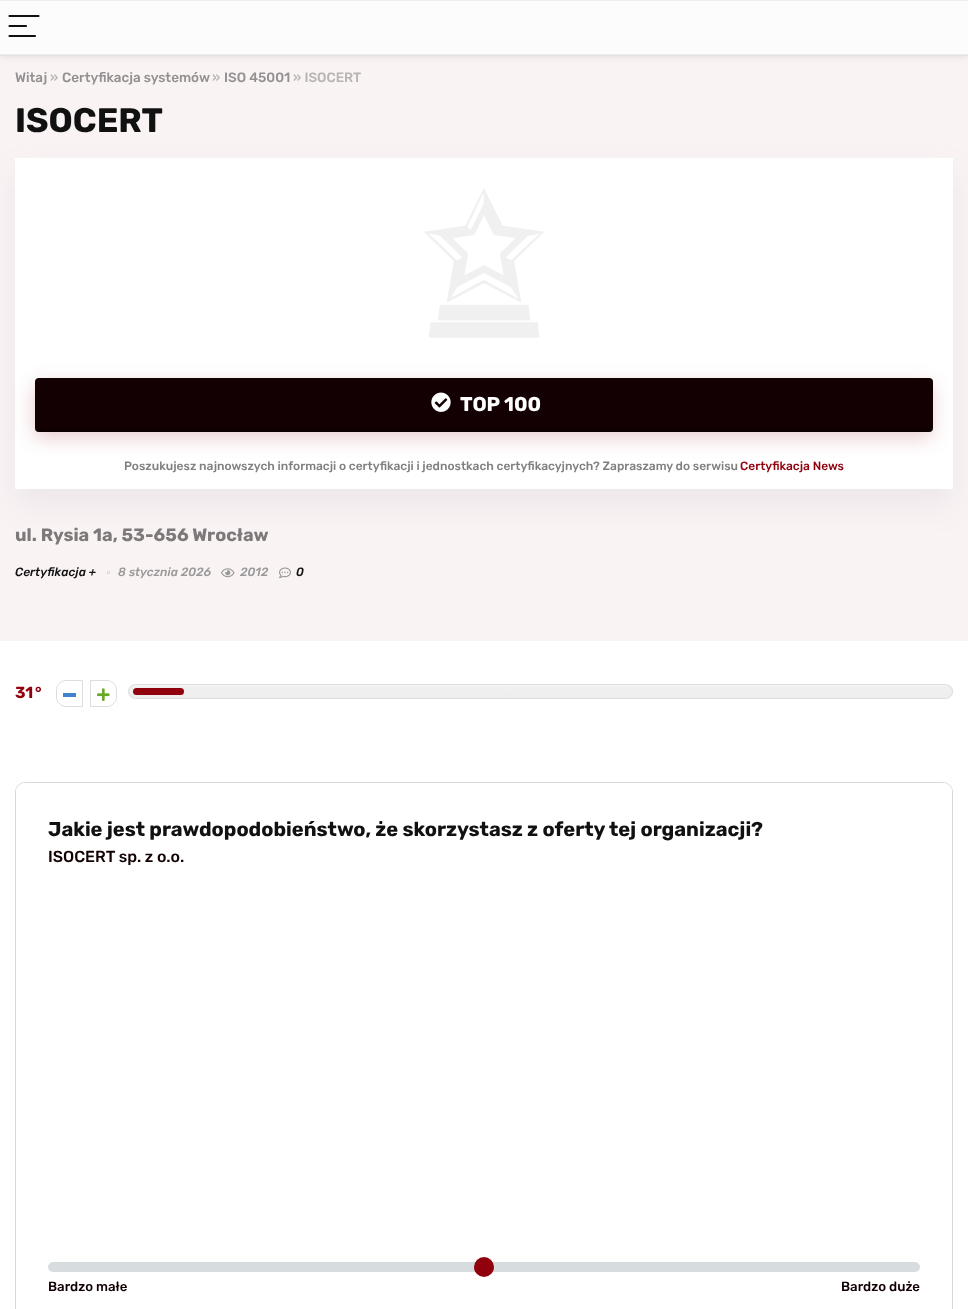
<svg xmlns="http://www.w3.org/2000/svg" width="968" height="1309">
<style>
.a{font:500 13.5px Rubik;fill:#929091}
.b{font:500 13.5px Rubik;fill:#b6b4b4}
.c{font:bold 34px Rubik;fill:#111}
.d{font:bold 20px Rubik;fill:#fff}
.e{font:500 12px Rubik;fill:#808080}
.f{font:500 12px Rubik;fill:#91000d}
.g{font:bold 18px Rubik;fill:#7d797a}
.h{font:italic 500 12px Rubik;fill:#111}
.i{font:italic 500 12px Rubik;fill:#999}
.j{font:bold 16px Rubik;fill:#91000d}
.k{font:bold 20px Rubik;fill:#111}
.l{font:500 16px Rubik;fill:#120002}
.m{font:500 13.25px Rubik;fill:#120002}
</style>
<defs>
<clipPath id="clip1"><rect x="128" y="684" width="825" height="15" rx="7.5"/></clipPath>
<linearGradient id="g1" gradientUnits="userSpaceOnUse" x1="541" y1="685" x2="541" y2="698"><stop offset="0.08" stop-color="#f5f5f5"/><stop offset="0.08" stop-color="#f0f0f0"/><stop offset="1" stop-color="#eee"/></linearGradient>
</defs>
<rect width="100%" height="100%" fill="#fff"/>
<path fill="none" stroke="#f3eced" d="M-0.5 -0.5h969v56H-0.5z"/>
<path fill="#faf3f4" d="M0 56h968v585H0z"/>
<path fill="#0000001a" filter="blur(4px)" d="M0 1h968v55H0z"/>
<path fill="#fcfcfc" d="M0 1h968v53H0z"/>
<path fill="#eee" d="M0 0h968v1H0z"/>
<path fill="#eee" d="M0 54h968v1H0z"/>
<path fill="none" stroke="#111" stroke-width="2.2" stroke-linecap="round" d="M9.5 16h29m-29 10h16.5m-16.5 10h25.5"/>
<path fill="#777b921a" filter="blur(15px)" d="M15 173h938v331H15z"/>
<path fill="#fff" d="M15 158h938v331H15z"/>
<image href="1.png" x="424" y="188" width="120" height="150"/>
<rect fill="#91000d33" filter="blur(9.5px)" x="34" y="384" width="898" height="54" rx="4"/>
<rect fill="#120002" x="35" y="378" width="898" height="54" rx="4"/>
<path fill="#00000033" d="M37 428h894v4H37z"/>
<image href="2.png" x="431" y="392" width="20" height="20"/>
<image href="3.png" x="107" y="571" width="3" height="4"/>
<image href="4.png" x="221" y="568" width="14" height="10"/>
<image href="5.png" x="279" y="567" width="12" height="11"/>
<path fill="none" stroke="#dcddde" d="M66 680.5h16.5v26h-16.5c-5 0-9.5-4.5-9.5-9.5v-7c0-5 4.5-9.5 9.5-9.5z"/>
<path fill="#3f83cb" d="M63 693h13v4H63z"/>
<path fill="none" stroke="#dcddde" d="M90.5 680.5h16.5c5 0 9.5 4.5 9.5 9.5v7c0 5-4.5 9.5-9.5 9.5h-16.5z"/>
<image href="6.png" x="97" y="688" width="13" height="13"/>
<g clip-path="url(#clip1)">
<path fill="url(#g1)" d="M128 685h825v13H128z"/>
</g>
<rect fill="none" stroke="#ddd" x="128.5" y="684.5" width="824" height="14" rx="7"/>
<rect fill="#91000d" x="133" y="688" width="51" height="7" rx="3.5"/>
<rect fill="none" stroke="#d8d8d8" x="15.5" y="782.5" width="937" height="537" rx="9.5"/>
<rect fill="#fff" x="16" y="783" width="936" height="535" rx="9"/>
<rect fill="#d7dcdf" x="48" y="1262" width="872" height="10" rx="5"/>
<circle fill="#91000d" cx="484" cy="1267" r="10"/>
<text class="a" x="15" y="82">Witaj</text>
<text class="b" x="50" y="82">»</text>
<text class="a" x="62" y="82">Certyfikacja systemów</text>
<text class="b" x="212" y="82">»</text>
<text class="a" x="224" y="82">ISO 45001</text>
<text class="b" x="293" y="82">» ISOCERT</text>
<text class="c" x="15" y="132">ISOCERT</text>
<text class="d" x="460" y="411">TOP 100</text>
<text class="e" x="124" y="470">Poszukujesz najnowszych informacji o certyfikacji i jednostkach certyfikacyjnych? Zapraszamy do serwisu</text>
<text class="f" x="740" y="470">Certyfikacja News</text>
<text class="g" x="15" y="541">ul. Rysia 1a, 53-656 Wrocław</text>
<text class="h" x="15" y="576">Certyfikacja +</text>
<text class="i" x="118" y="576">8 stycznia 2026</text>
<text class="i" x="240" y="576">2012</text>
<text class="h" x="296" y="576">0</text>
<text class="j" x="15" y="698">31</text>
<text class="j" x="35" y="698">°</text>
<text class="k" x="48" y="836">Jakie jest prawdopodobieństwo, że skorzystasz z oferty tej organizacji?</text>
<text class="l" x="48" y="862">ISOCERT sp. z o.o.</text>
<text class="m" x="48" y="1291">Bardzo małe</text>
<text class="m" x="841" y="1291">Bardzo duże</text>
</svg>
